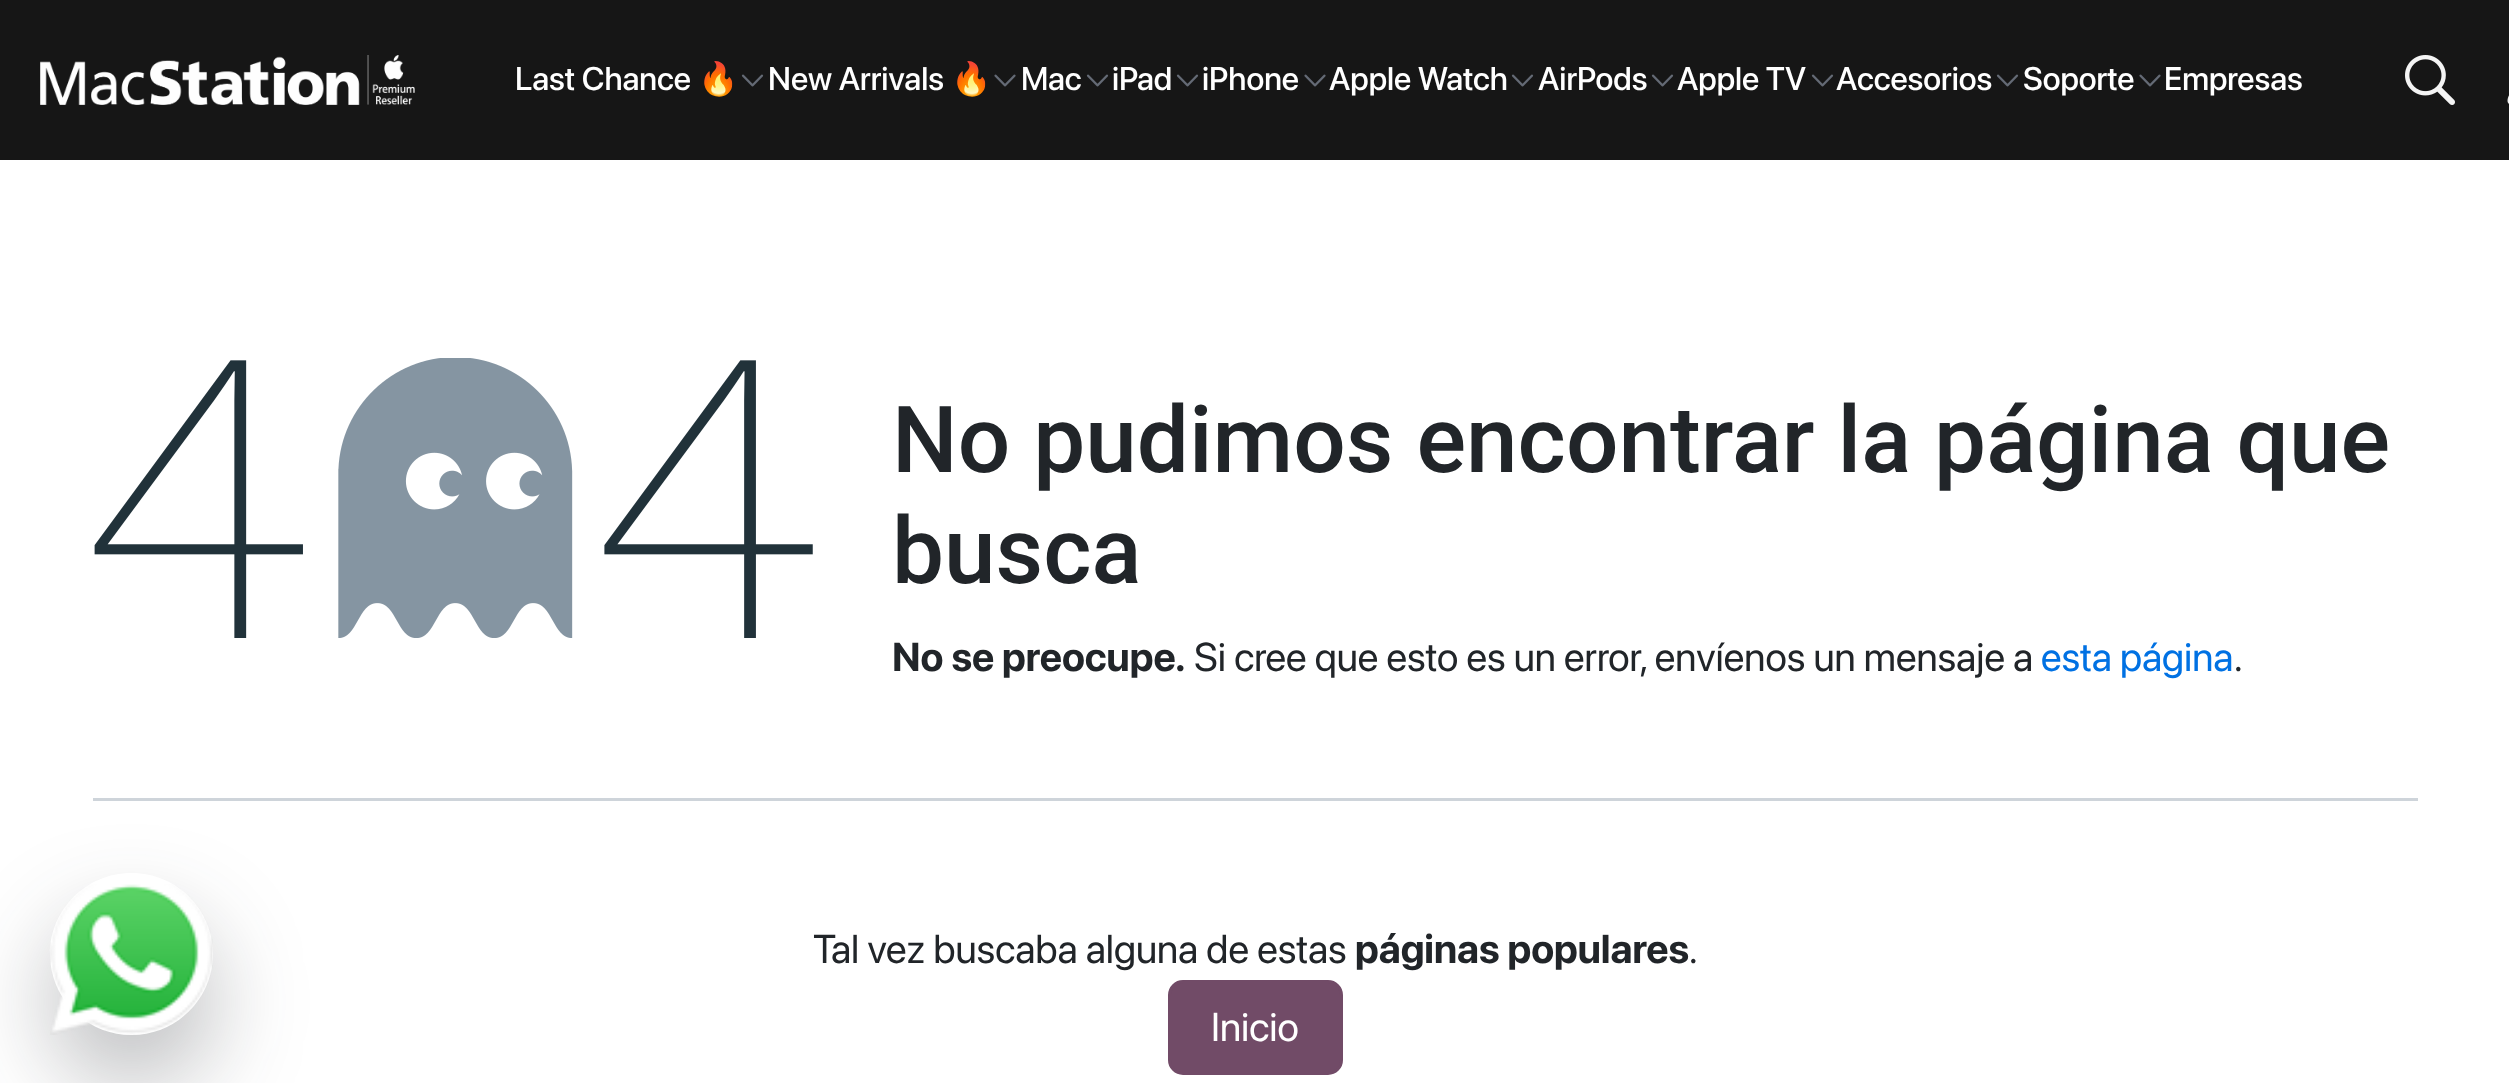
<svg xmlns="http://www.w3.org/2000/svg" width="2509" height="1083">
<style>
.a{font:500 32.5px SF Pro Display;fill:#fff}
.b{font:32.5px Noto Color Emoji;fill:#fff}
.c{font:500 92.6px Roboto;fill:#212529}
.d{font:bold 40px SF Pro Display;fill:#212529}
.e{font:40px SF Pro Display;fill:#212529}
.f{font:40px SF Pro Display;fill:#0071e3}
.g{font:40px SF Pro Display;fill:#fff}
</style>
<defs>
<clipPath id="clip1"><path d="M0 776h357v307h-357zm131 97h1c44.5 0 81 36.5 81 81c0 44.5-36.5 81-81 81h-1c-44.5 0-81-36.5-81-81c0-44.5 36.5-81 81-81z" clip-rule="evenodd"/></clipPath>
</defs>
<rect width="100%" height="100%" fill="#fff"/>
<path fill="#161616" d="M0 0h2509v160H0z"/>
<image href="1.png" x="40" y="55" width="375" height="50"/>
<image href="2.png" x="741" y="74" width="23" height="13"/>
<image href="3.png" x="994" y="74" width="22" height="13"/>
<image href="2.png" x="1086" y="74" width="23" height="13"/>
<image href="2.png" x="1176" y="74" width="23" height="13"/>
<image href="3.png" x="1304" y="74" width="22" height="13"/>
<image href="2.png" x="1511" y="74" width="23" height="13"/>
<image href="2.png" x="1651" y="74" width="23" height="13"/>
<image href="2.png" x="1811" y="74" width="23" height="13"/>
<image href="2.png" x="1996" y="74" width="23" height="13"/>
<image href="3.png" x="2139" y="74" width="22" height="13"/>
<image href="4.png" x="2405" y="55" width="50" height="50"/>
<image href="5.png" x="2507" y="95" width="2" height="9"/>
<path fill="#ced4da" d="M93 798h2325v3H93z"/>
<g clip-path="url(#clip1)">
<rect fill="#22242b4d" filter="blur(47.5px)" x="50" y="920" width="163" height="163" rx="81.5"/>
</g>
<image href="6.png" x="50" y="884" width="163" height="151"/>
<image href="7.png" x="94" y="358" width="719" height="280"/>
<rect fill="#714b67" stroke="#714b67" stroke-width="3" x="1169.5" y="981.5" width="172" height="92" rx="13.5"/>
<text class="a" x="515" y="90">Last Chance</text>
<text class="b" x="698" y="90">🔥</text>
<text class="a" x="768" y="90">New Arrivals</text>
<text class="b" x="951" y="90">🔥</text>
<text class="a" x="1021" y="90">Mac</text>
<text class="a" x="1112" y="90">iPad</text>
<text class="a" x="1202" y="90">iPhone</text>
<text class="a" x="1329" y="90">Apple Watch</text>
<text class="a" x="1538" y="90">AirPods</text>
<text class="a" x="1677" y="90">Apple TV</text>
<text class="a" x="1836" y="90">Accesorios</text>
<text class="a" x="2023" y="90">Soporte</text>
<text class="a" x="2164" y="90">Empresas</text>
<text class="c" x="892" y="472">No pudimos encontrar la página que</text>
<text class="c" x="892" y="583">busca</text>
<text class="d" x="892" y="671">No se preocupe.</text>
<text class="e" x="1194" y="671">Si cree que esto es un error, envíenos un mensaje a</text>
<text class="f" x="2041" y="671">esta página</text>
<text class="e" x="2234" y="671">.</text>
<text class="e" x="813" y="963">Tal vez buscaba alguna de estas</text>
<text class="d" x="1355" y="963">páginas populares</text>
<text class="e" x="1689" y="963">.</text>
<text class="g" x="1211" y="1041">Inicio</text>
</svg>
